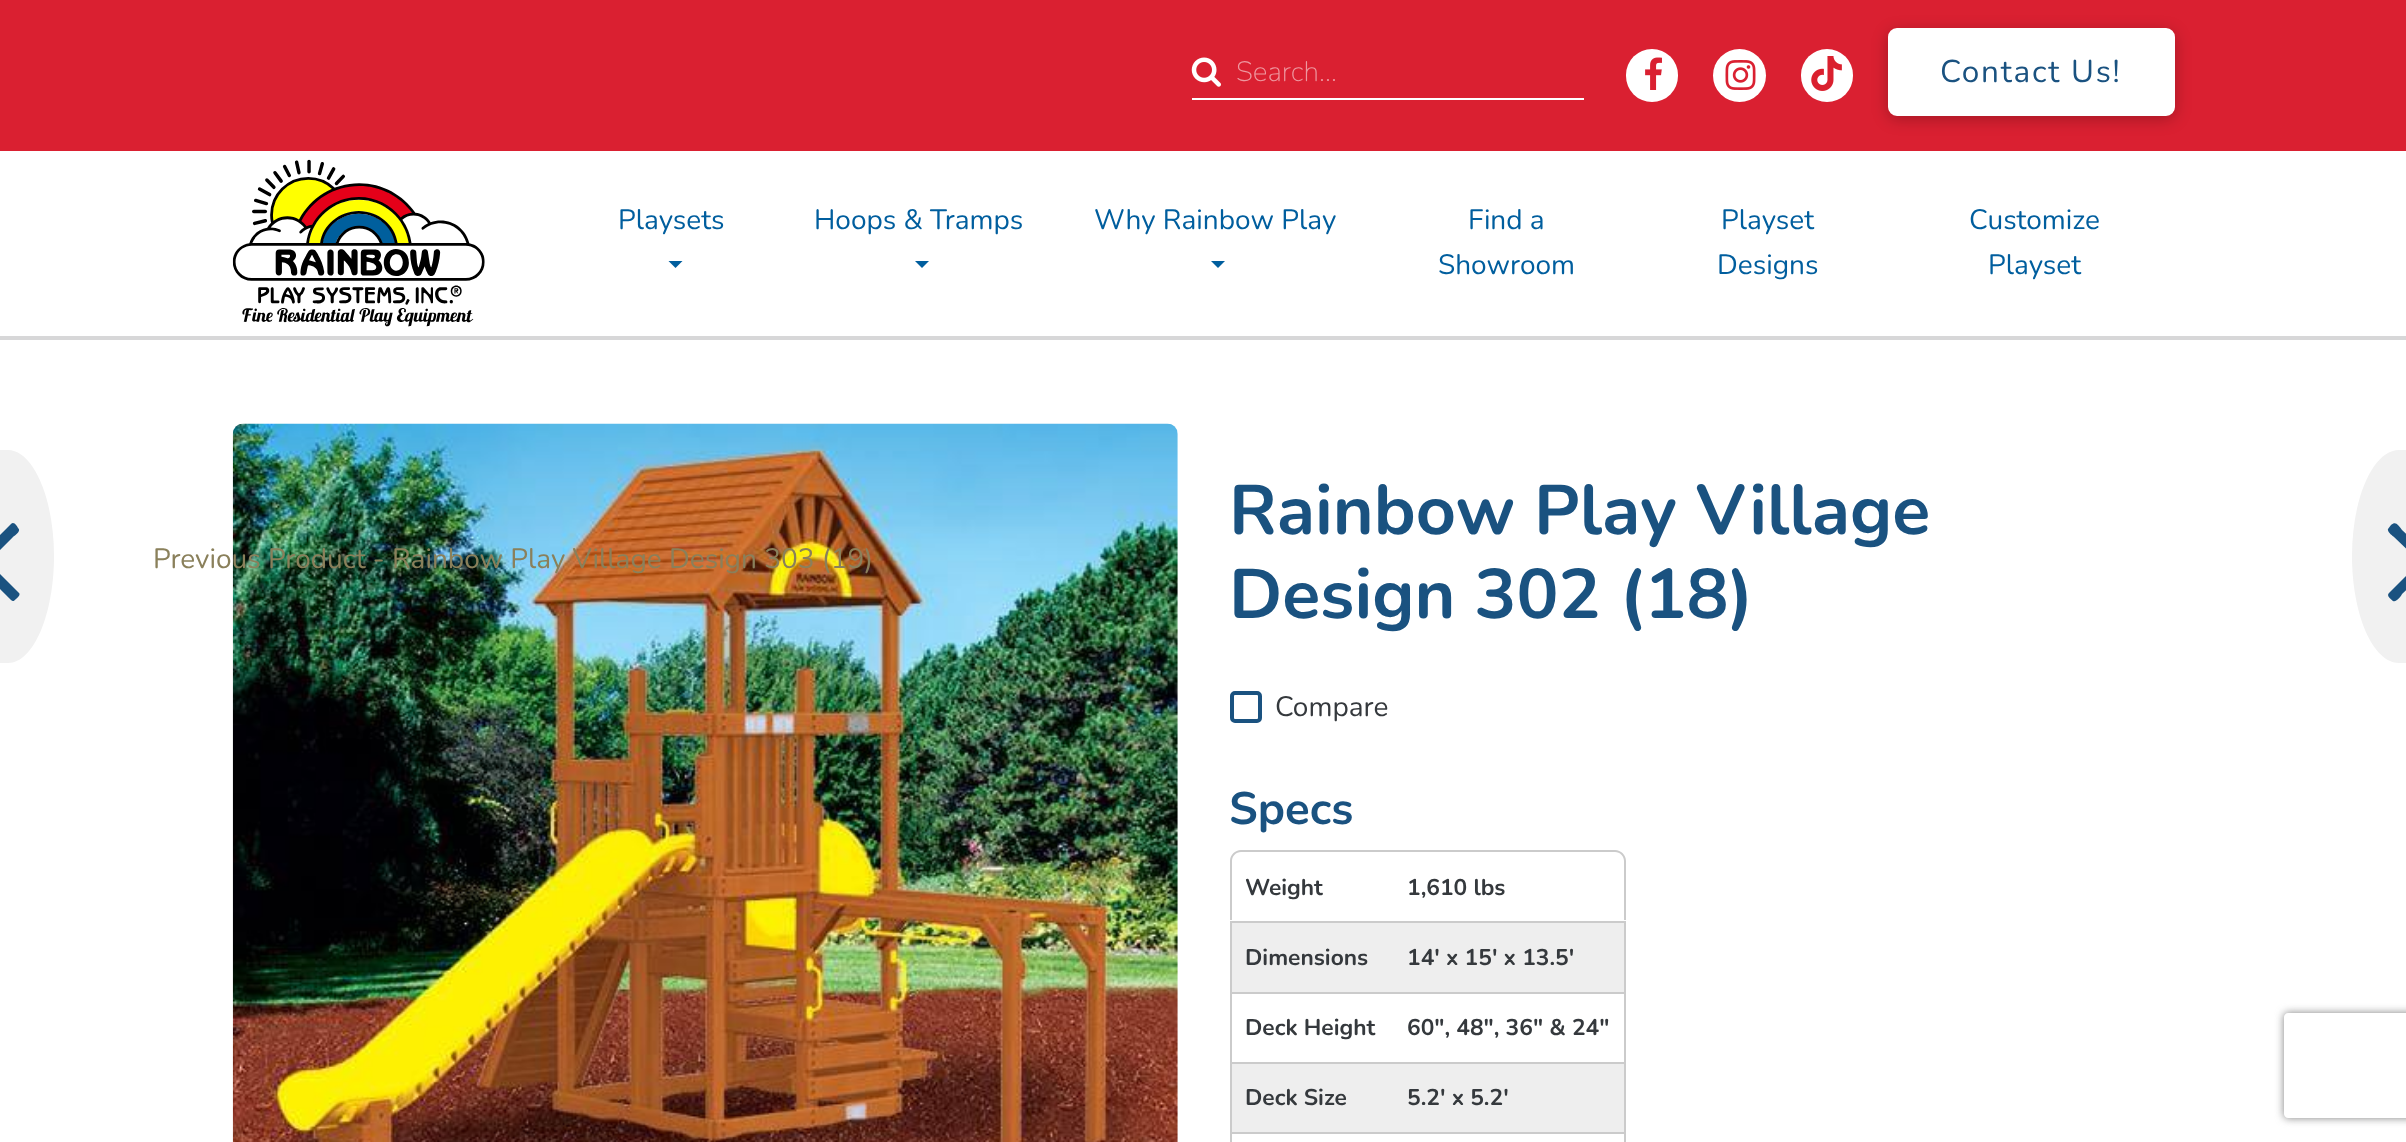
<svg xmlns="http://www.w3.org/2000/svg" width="2406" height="1142">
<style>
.a{font:200 28px Nunito;fill:#ee98a0}
.b{font:31.5px Nunito;letter-spacing:1.75px;fill:#1a5280}
.c{font:28px Nunito;fill:#005e9e}
.d{font:28px Nunito;fill:#8a805b}
.e{font:bold 70px Nunito;fill:#1a5280}
.f{font:28px Nunito;fill:#35393d}
.g{font:bold 45.5px Nunito;fill:#1a5280}
.h{font:bold 22.75px Nunito;fill:#35393d}
</style>
<defs>
<clipPath id="clip1"><path d="M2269 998h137v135h-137zm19 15h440c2 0 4 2 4 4v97c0 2-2 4-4 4h-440c-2 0-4-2-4-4v-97c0-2 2-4 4-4z" clip-rule="evenodd"/></clipPath>
</defs>
<rect width="100%" height="100%" fill="#fff"/>
<path fill="#da2031" d="M0 0h2406v151H0z"/>
<path fill="#fff" d="M1192 98h392v2H1192z"/>
<image href="1.png" x="1191" y="57" width="30" height="30"/>
<rect fill="#fff" x="1626" y="49" width="52" height="53" rx="26"/>
<image href="2.png" x="1645" y="57" width="17" height="33"/>
<circle fill="#fff" cx="1739.5" cy="75.5" r="26.5"/>
<image href="3.png" x="1725" y="60" width="31" height="30"/>
<rect fill="#fff" x="1801" y="49" width="52" height="53" rx="26"/>
<image href="4.png" x="1811" y="56" width="31" height="35"/>
<rect fill="#00000040" filter="blur(8px)" x="1888" y="32" width="287" height="87" rx="9"/>
<rect fill="#fff" stroke="#fff" stroke-width="4" x="1890" y="30" width="283" height="84" rx="7"/>
<path fill="#d7d7d8" d="M0 336h2406v4H0z"/>
<image href="5.png" x="232" y="159" width="253" height="168"/>
<path fill="#005e9e" d="M668.5 261h14l-7 7z"/>
<path fill="#005e9e" d="M915 261h14l-7 7z"/>
<path fill="#005e9e" d="M1211 261h14l-7 7z"/>
<path fill="#f1f1f1" d="M-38 450h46c25 0 46 48 46 106c0 59-21 107-46 107h-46z"/>
<path fill="#1a5280" d="M18 528c4 3-4 8-5 9l-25 25l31 31c2 2-2 5-3 6c-2 2-3 3-5 1l-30-30c-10-9-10-6 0-16l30-30c3-3 6 2 7 4z"/>
<image href="6.png" x="232" y="423" width="946" height="719"/>
<rect fill="none" stroke="#1a5280" stroke-width="4" x="1232" y="693" width="28" height="28" rx="3"/>
<path fill="#cbcbcb" fill-rule="evenodd" d="M1241 850h152v70h-163v-59c0-6 5-11 11-11zm0 2h152v68h-161v-59c0-5 4-9 9-9z"/>
<path fill="#cbcbcb" fill-rule="evenodd" d="M1393 850h222c6 0 11 5 11 11v59h-233zm0 2h222c5 0 9 4 9 9v59h-231z"/>
<path fill="#eee" d="M1232 923h392v69H1232z"/>
<path fill="#cbcbcb" d="M1230 921h396v2H1230z"/>
<path fill="#cbcbcb" d="M1230 921h2v71H1230z"/>
<path fill="#cbcbcb" d="M1624 921h2v71H1624z"/>
<path fill="#cbcbcb" d="M1230 992h396v2H1230z"/>
<path fill="#cbcbcb" d="M1230 992h2v70H1230z"/>
<path fill="#cbcbcb" d="M1624 992h2v70H1624z"/>
<path fill="#eee" d="M1232 1064h392v68H1232z"/>
<path fill="#cbcbcb" d="M1230 1062h396v2H1230z"/>
<path fill="#cbcbcb" d="M1230 1062h2v70H1230z"/>
<path fill="#cbcbcb" d="M1624 1062h2v70H1624z"/>
<path fill="#cbcbcb" fill-rule="evenodd" d="M1230 1132h163v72h-152c-6 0-11-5-11-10zm2 2h161v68h-152c-5 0-9-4-9-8z"/>
<path fill="#cbcbcb" fill-rule="evenodd" d="M1393 1132h233v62c0 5-5 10-11 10h-222zm0 2h231v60c0 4-4 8-9 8h-222z"/>
<path fill="#f1f1f1" d="M2399 450h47v213h-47c-26 0-47-48-47-107c0-58 21-106 47-106z"/>
<path fill="#1a5280" d="M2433 560c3 4-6 10-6 10l-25 24c0 1-6 9-9 7c-2-2-7-5-4-8l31-31l-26-25c-1-1-7-5-6-8l3-4c5-4 7 0 11 5z"/>
<g clip-path="url(#clip1)">
<rect fill="#808080" filter="blur(4.5px)" x="2284" y="1013" width="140" height="105" rx="4"/>
</g>
<text class="a" x="1236" y="81">Search...</text>
<text class="b" x="1940" y="82">Contact Us!</text>
<text class="c" x="618" y="229">Playsets</text>
<text class="c" x="814" y="229">Hoops &amp; Tramps</text>
<text class="c" x="1094" y="229">Why Rainbow Play</text>
<text class="c" x="1468" y="229">Find a</text>
<text class="c" x="1438" y="274">Showroom</text>
<text class="c" x="1721" y="229">Playset</text>
<text class="c" x="1717" y="274">Designs</text>
<text class="c" x="1969" y="229">Customize</text>
<text class="c" x="1988" y="274">Playset</text>
<text class="d" x="153" y="568">Previous Product - Rainbow Play Village Design 303 (19)</text>
<text class="e" x="1229" y="534">Rainbow Play Village</text>
<text class="e" x="1229" y="618">Design 302 (18)</text>
<text class="f" x="1275" y="716">Compare</text>
<text class="g" x="1229" y="824">Specs</text>
<text class="h" x="1245" y="895">Weight</text>
<text class="h" x="1407" y="895">1,610 lbs</text>
<text class="h" x="1245" y="965">Dimensions</text>
<text class="h" x="1407" y="965">14' x 15' x 13.5'</text>
<text class="h" x="1245" y="1035">Deck Height</text>
<text class="h" x="1407" y="1035">60", 48", 36" &amp; 24"</text>
<text class="h" x="1245" y="1105">Deck Size</text>
<text class="h" x="1407" y="1105">5.2' x 5.2'</text>
</svg>
